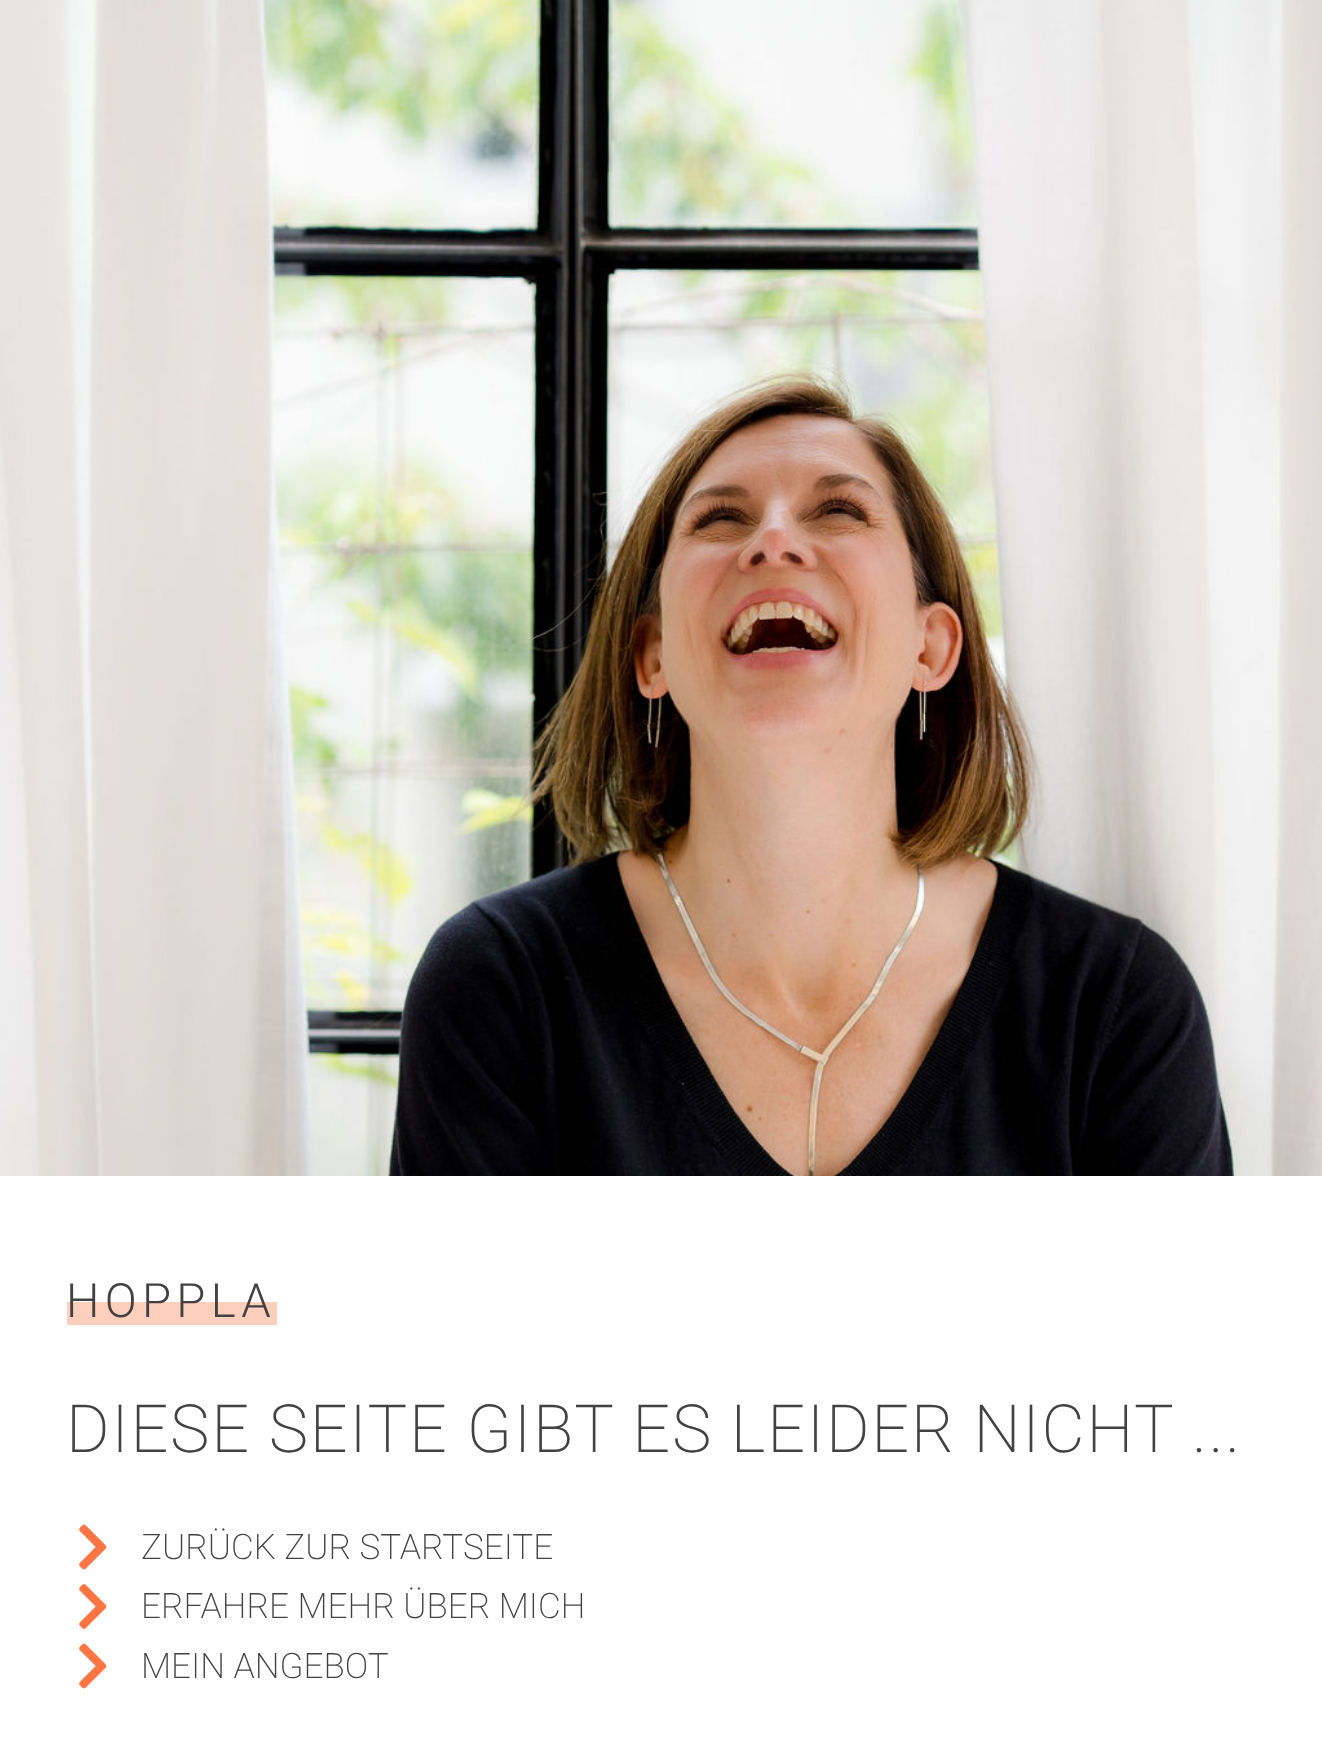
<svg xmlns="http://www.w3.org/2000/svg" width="1322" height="1752">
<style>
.a{font:300 47.25px Roboto;letter-spacing:5.25px;fill:#424242}
.b{font:200 66.5px Roboto;letter-spacing:1.75px;fill:#424242}
.c{font:200 35px Roboto;fill:#424242}
</style>
<rect width="100%" height="100%" fill="#fff"/>
<image href="1.png" x="0" y="0" width="1322" height="1176"/>
<path fill="#fecfbd" d="M67 1302h210v23H67z"/>
<image href="2.png" x="79" y="1524" width="28" height="46"/>
<image href="3.png" x="79" y="1584" width="28" height="45"/>
<image href="2.png" x="79" y="1643" width="28" height="46"/>
<text class="a" x="66" y="1317">HOPPLA</text>
<text class="b" x="66" y="1452">DIESE SEITE GIBT ES LEIDER NICHT ...</text>
<text class="c" x="141" y="1559">ZURÜCK ZUR STARTSEITE</text>
<text class="c" x="141" y="1618">ERFAHRE MEHR ÜBER MICH</text>
<text class="c" x="141" y="1678">MEIN ANGEBOT</text>
</svg>
